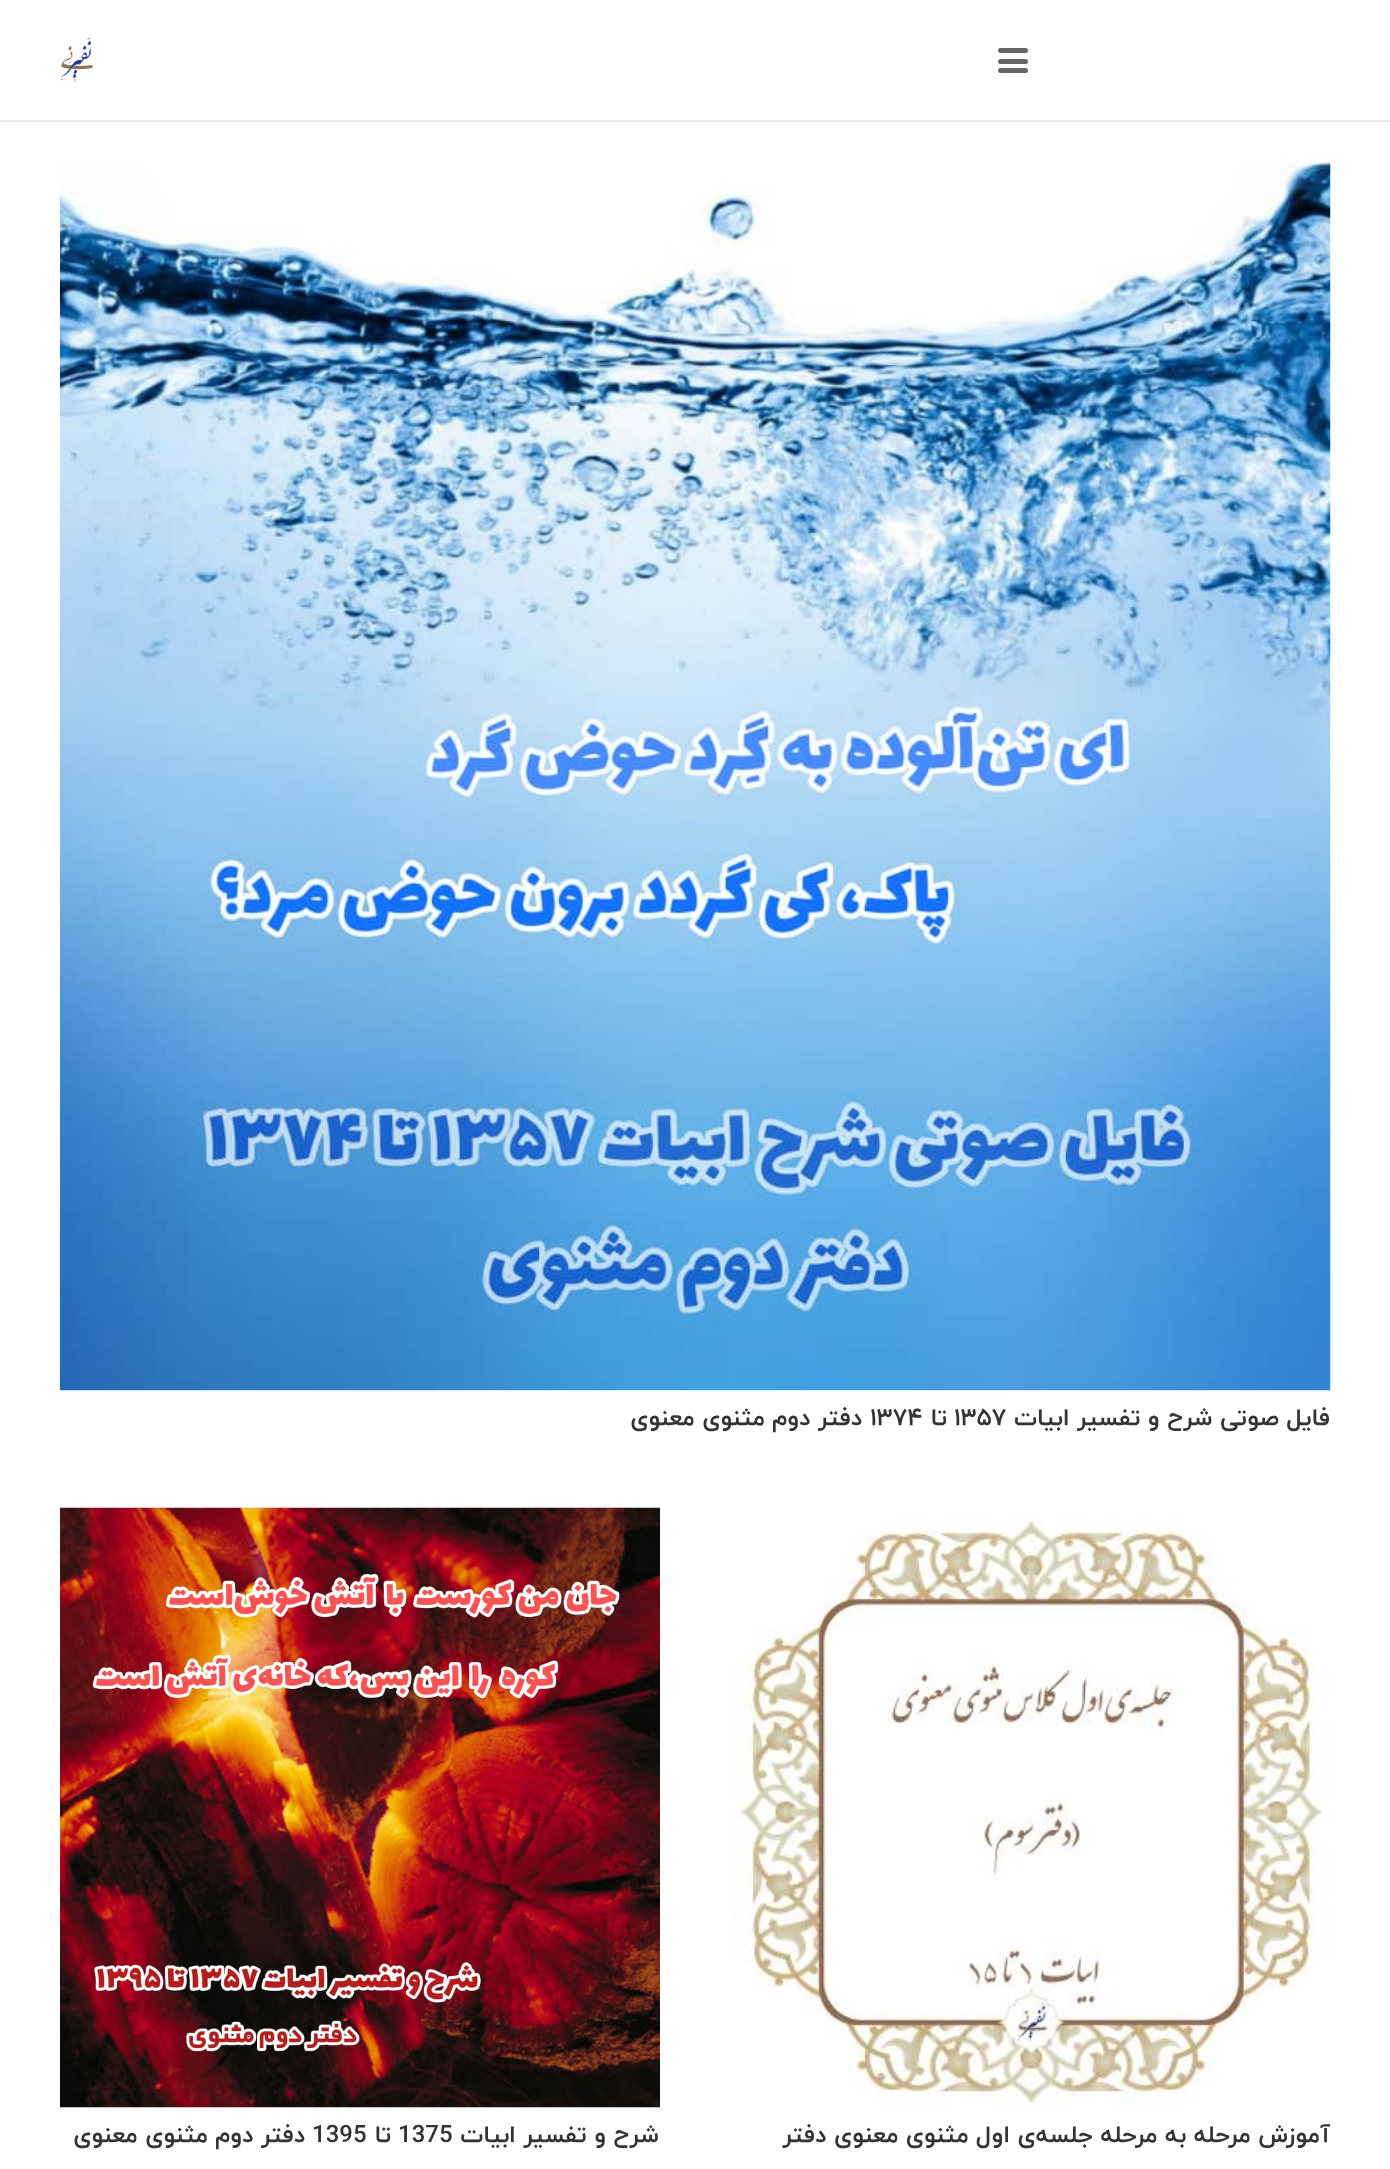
<svg xmlns="http://www.w3.org/2000/svg" width="1390" height="2169">
<style>
.a{font:bold 24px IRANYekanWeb;direction:rtl;fill:#333}
.b{font:bold 24px IRANYekanWeb;fill:#333}
</style>
<rect width="100%" height="100%" fill="#fff"/>
<path fill="#ebebeb" d="M0 120v2h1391v-120h-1v118z"/>
<rect fill="#666" x="998" y="59" width="30" height="5" rx="2.5"/>
<rect fill="#666" x="998" y="48" width="30" height="5" rx="2.5"/>
<rect fill="#666" x="998" y="68" width="30" height="5" rx="2.5"/>
<image href="1.png" x="60" y="37" width="33" height="46"/>
<image href="2.png" x="60" y="161" width="1271" height="1230"/>
<image href="3.png" x="732" y="1519" width="598" height="588"/>
<image href="4.png" x="60" y="1507" width="600" height="601"/>
<text class="a" x="1330" y="1425">فایل صوتی شرح و تفسیر ابیات</text>
<text class="b" x="954" y="1425">۱۳۵۷</text>
<text class="a" x="947" y="1425">تا</text>
<text class="b" x="870" y="1425">۱۳۷۴</text>
<text class="a" x="862" y="1425">دفتر دوم مثنوی معنوی</text>
<text class="a" x="1330" y="2142">آموزش مرحله‌ به‌ مرحله</text>
<text class="a" x="1093" y="2142">جلسه‌ی‌ اول مثنوی معنوی دفتر</text>
<text class="a" x="659" y="2142">شرح و تفسیر ابیات</text>
<text class="b" x="398" y="2142">1375</text>
<text class="a" x="391" y="2142">تا</text>
<text class="b" x="312" y="2142">1395</text>
<text class="a" x="305" y="2142">دفتر دوم مثنوی معنوی</text>
</svg>
